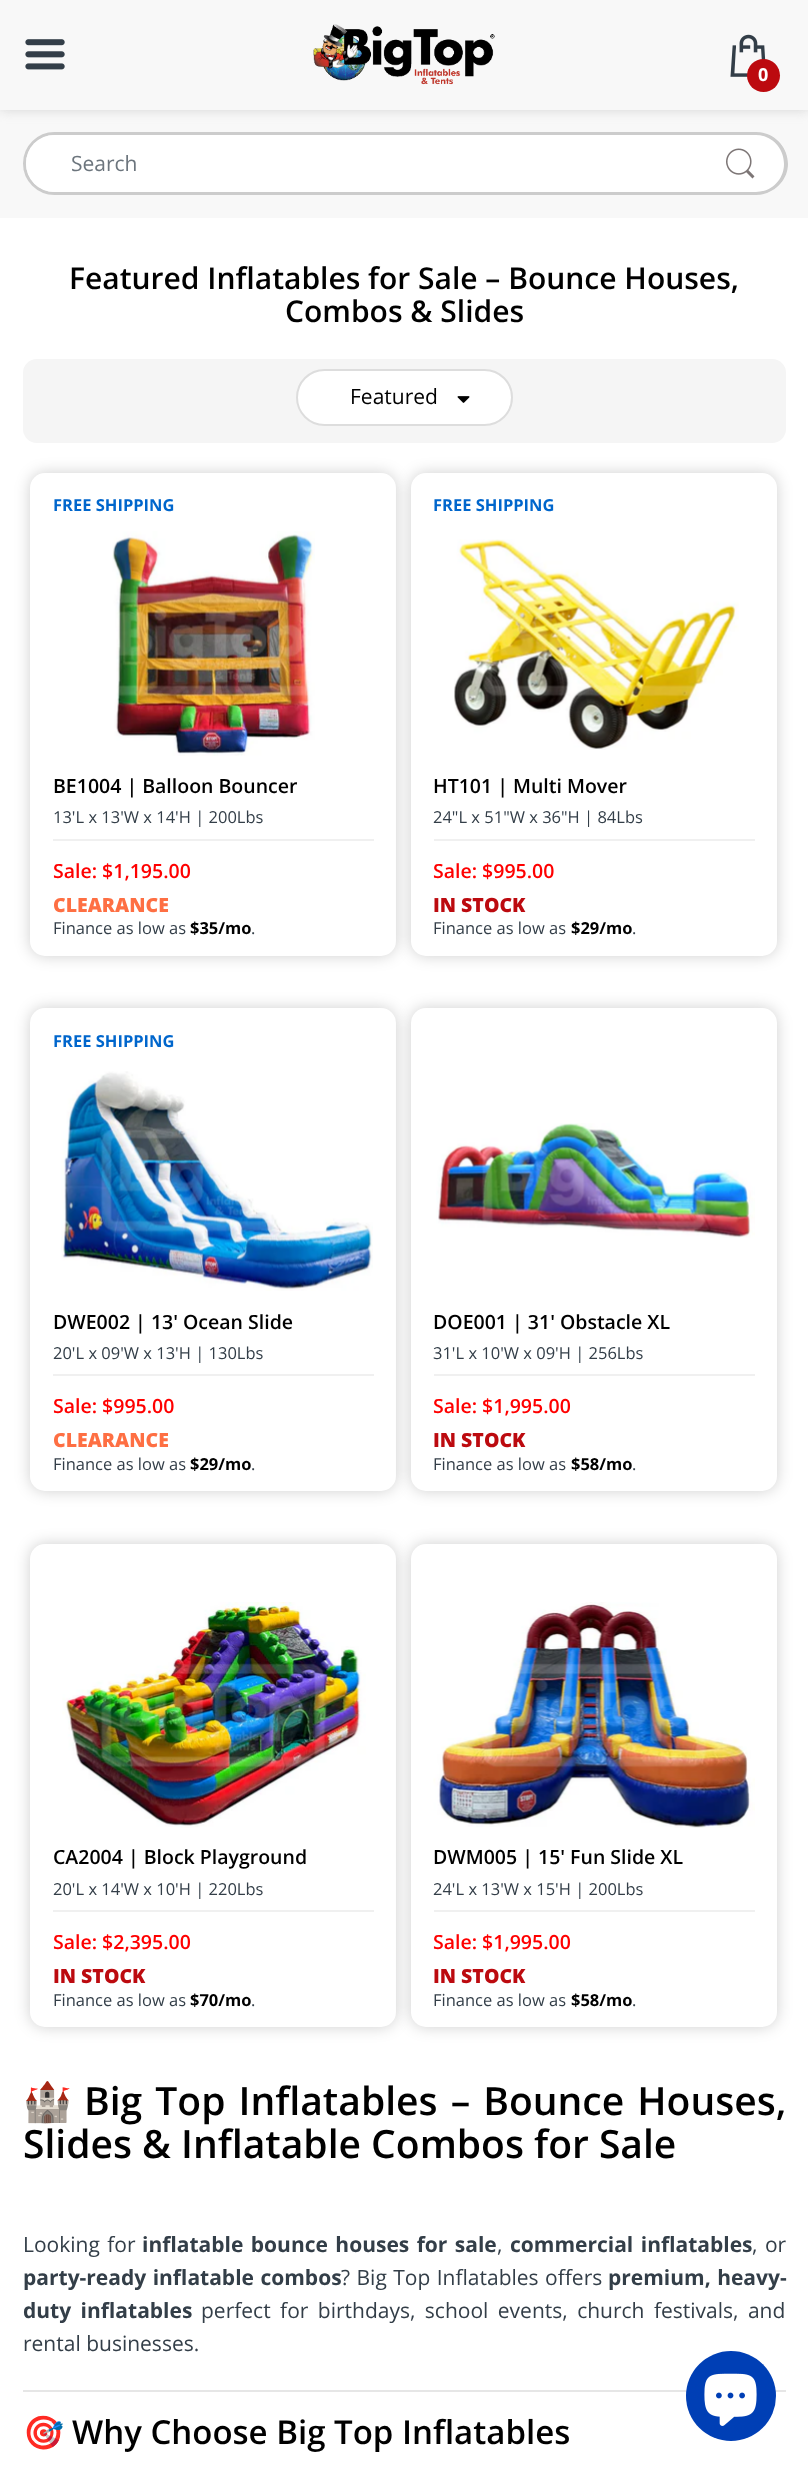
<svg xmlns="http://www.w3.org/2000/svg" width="808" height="2471">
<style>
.a{font:bold 18px Open Sans;fill:#fff}
.b{font:21px Open Sans;fill:#6c757d}
.c{font:600 30px Open Sans;fill:#000}
.d{font:21px Open Sans;fill:#000}
.e{font:bold 16.5px Open Sans;fill:#06c}
.f{font:600 19.5px Open Sans;fill:#000}
.g{font:16.5px Open Sans;fill:#333e48}
.h{font:600 19.5px Open Sans;fill:#f00}
.i{font:800 19.5px Open Sans;fill:#fe6f43}
.j{font:bold 16.5px Open Sans;fill:#000}
.k{font:800 19.5px Open Sans;fill:#bc0a0f}
.l{font:bold 39px Noto Color Emoji;fill:#000}
.m{font:600 39px Open Sans;fill:#000}
.n{font:21px Open Sans;fill:#333e48}
.o{font:bold 21px Open Sans;fill:#333e48}
.p{font:bold 33px Noto Color Emoji;fill:#000}
.q{font:600 33px Open Sans;fill:#000}
</style>
<defs>
<clipPath id="clip1"><path d="M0 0h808v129h-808zm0 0h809v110h-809z" clip-rule="evenodd"/></clipPath>
</defs>
<rect width="100%" height="100%" fill="#fff"/>
<path fill="#f8f8f8" d="M0 0h808v218H0z"/>
<g clip-path="url(#clip1)">
<path fill="#c9c9c9bf" filter="blur(6px)" d="M0 0h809v110H0z"/>
</g>
<image href="1.png" x="25" y="39" width="40" height="31"/>
<image href="2.png" x="313" y="24" width="182" height="61"/>
<image href="3.png" x="730" y="34" width="36" height="43"/>
<circle fill="#bc0a0f" cx="763.5" cy="75.5" r="16.5"/>
<rect fill="none" stroke="#ccc" stroke-width="3" x="24.5" y="133.5" width="760" height="60" rx="30"/>
<rect fill="#fff" x="26" y="135" width="757" height="57" rx="28.5"/>
<path fill="#fff" d="M698 132h58.5c17.5 0 31.5 14 31.5 31.5c0 17.5-14 31.5-31.5 31.5h-58.5z"/>
<path fill="#ccc" fill-rule="evenodd" d="M698 132h58c17 0 32 14 32 32c0 17-15 31-32 31h-58zm0 3h58c16 0 28 13 28 29c0 15-12 28-28 28h-58z"/>
<image href="4.png" x="726" y="148" width="29" height="31"/>
<rect fill="#f5f5f5" x="23" y="359" width="763" height="84" rx="14"/>
<rect fill="#fff" stroke="#ddd" stroke-width="2" x="297" y="370" width="215" height="55" rx="27.5"/>
<image href="5.png" x="457" y="396" width="13" height="7"/>
<rect fill="#00000030" filter="blur(7.5px)" x="30" y="473" width="366" height="483" rx="15"/>
<rect fill="#fff" x="30" y="473" width="366" height="483" rx="15"/>
<image href="6.png" x="112" y="531" width="203" height="225"/>
<path fill="#f0f0f0" d="M53 839h321v2H53z"/>
<rect fill="#00000030" filter="blur(7.5px)" x="411" y="473" width="366" height="483" rx="15"/>
<rect fill="#fff" x="411" y="473" width="366" height="483" rx="15"/>
<image href="7.png" x="454" y="539" width="285" height="211"/>
<path fill="#f0f0f0" d="M434 839h321v2H434z"/>
<rect fill="#00000030" filter="blur(7.5px)" x="30" y="1008" width="366" height="483" rx="15"/>
<rect fill="#fff" x="30" y="1008" width="366" height="483" rx="15"/>
<image href="8.png" x="61" y="1071" width="312" height="220"/>
<path fill="#f0f0f0" d="M53 1374h321v2H53z"/>
<rect fill="#00000030" filter="blur(7.5px)" x="411" y="1008" width="366" height="483" rx="15"/>
<rect fill="#fff" x="411" y="1008" width="366" height="483" rx="15"/>
<image href="9.png" x="436" y="1123" width="319" height="115"/>
<path fill="#f0f0f0" d="M434 1374h321v2H434z"/>
<rect fill="#00000030" filter="blur(7.5px)" x="30" y="1544" width="366" height="483" rx="15"/>
<rect fill="#fff" x="30" y="1544" width="366" height="483" rx="15"/>
<image href="10.png" x="62" y="1602" width="304" height="226"/>
<path fill="#f0f0f0" d="M53 1910h321v2H53z"/>
<rect fill="#00000030" filter="blur(7.5px)" x="411" y="1544" width="366" height="483" rx="15"/>
<rect fill="#fff" x="411" y="1544" width="366" height="483" rx="15"/>
<image href="11.png" x="433" y="1602" width="322" height="226"/>
<path fill="#f0f0f0" d="M434 1910h321v2H434z"/>
<path fill="#e6e6e6" d="M23 2390h763v2H23z"/>
<circle fill="#003fb5" cx="731" cy="2396" r="45"/>
<image href="12.png" x="704" y="2373" width="53" height="53"/>
<text class="a" x="758" y="81">0</text>
<text class="b" x="71" y="171">Search</text>
<text class="c" x="69" y="289">Featured Inflatables for Sale – Bounce Houses,</text>
<text class="c" x="285" y="322">Combos &amp; Slides</text>
<text class="d" x="350" y="404">Featured</text>
<text class="e" x="53" y="511">FREE SHIPPING</text>
<text class="f" x="53" y="793">BE1004 | Balloon Bouncer</text>
<text class="g" x="53" y="823">13'L x 13'W x 14'H | 200Lbs</text>
<text class="h" x="53" y="878">Sale: $1,195.00</text>
<text class="i" x="53" y="912">CLEARANCE</text>
<text class="g" x="53" y="934">Finance as low as</text>
<text class="j" x="190" y="934">$35/mo</text>
<text class="g" x="251" y="934">.</text>
<text class="e" x="433" y="511">FREE SHIPPING</text>
<text class="f" x="433" y="793">HT101 | Multi Mover</text>
<text class="g" x="433" y="823">24"L x 51"W x 36"H | 84Lbs</text>
<text class="h" x="433" y="878">Sale: $995.00</text>
<text class="k" x="433" y="912">IN STOCK</text>
<text class="g" x="433" y="934">Finance as low as</text>
<text class="j" x="571" y="934">$29/mo</text>
<text class="g" x="632" y="934">.</text>
<text class="e" x="53" y="1047">FREE SHIPPING</text>
<text class="f" x="53" y="1329">DWE002 | 13' Ocean Slide</text>
<text class="g" x="53" y="1359">20'L x 09'W x 13'H | 130Lbs</text>
<text class="h" x="53" y="1413">Sale: $995.00</text>
<text class="i" x="53" y="1447">CLEARANCE</text>
<text class="g" x="53" y="1470">Finance as low as</text>
<text class="j" x="190" y="1470">$29/mo</text>
<text class="g" x="251" y="1470">.</text>
<text class="f" x="433" y="1329">DOE001 | 31' Obstacle XL</text>
<text class="g" x="433" y="1359">31'L x 10'W x 09'H | 256Lbs</text>
<text class="h" x="433" y="1413">Sale: $1,995.00</text>
<text class="k" x="433" y="1447">IN STOCK</text>
<text class="g" x="433" y="1470">Finance as low as</text>
<text class="j" x="571" y="1470">$58/mo</text>
<text class="g" x="632" y="1470">.</text>
<text class="f" x="53" y="1864">CA2004 | Block Playground</text>
<text class="g" x="53" y="1895">20'L x 14'W x 10'H | 220Lbs</text>
<text class="h" x="53" y="1949">Sale: $2,395.00</text>
<text class="k" x="53" y="1983">IN STOCK</text>
<text class="g" x="53" y="2006">Finance as low as</text>
<text class="j" x="190" y="2006">$70/mo</text>
<text class="g" x="251" y="2006">.</text>
<text class="f" x="433" y="1864">DWM005 | 15' Fun Slide XL</text>
<text class="g" x="433" y="1895">24'L x 13'W x 15'H | 200Lbs</text>
<text class="h" x="433" y="1949">Sale: $1,995.00</text>
<text class="k" x="433" y="1983">IN STOCK</text>
<text class="g" x="433" y="2006">Finance as low as</text>
<text class="j" x="571" y="2006">$58/mo</text>
<text class="g" x="632" y="2006">.</text>
<text class="l" x="23" y="2115">🏰</text>
<text class="m" x="84" y="2115" word-spacing="3">Big Top Inflatables – Bounce Houses,</text>
<text class="m" x="23" y="2158">Slides &amp; Inflatable Combos for Sale</text>
<text class="n" x="23" y="2252" word-spacing="2">Looking for</text>
<text class="o" x="142" y="2252" word-spacing="2">inflatable bounce houses for sale</text>
<text class="n" x="497" y="2252">,</text>
<text class="o" x="510" y="2252" word-spacing="2">commercial inflatables</text>
<text class="n" x="752" y="2252" word-spacing="2">, or</text>
<text class="o" x="23" y="2285" word-spacing="1">party-ready inflatable combos</text>
<text class="n" x="341" y="2285" word-spacing="1">? Big Top Inflatables offers</text>
<text class="o" x="608" y="2285" word-spacing="1">premium, heavy-</text>
<text class="o" x="23" y="2318" word-spacing="4">duty inflatables</text>
<text class="n" x="201" y="2318" word-spacing="4">perfect for birthdays, school events, church festivals, and</text>
<text class="n" x="23" y="2351">rental businesses.</text>
<text class="p" x="23" y="2444">🎯</text>
<text class="q" x="72" y="2444">Why Choose Big Top Inflatables</text>
</svg>
